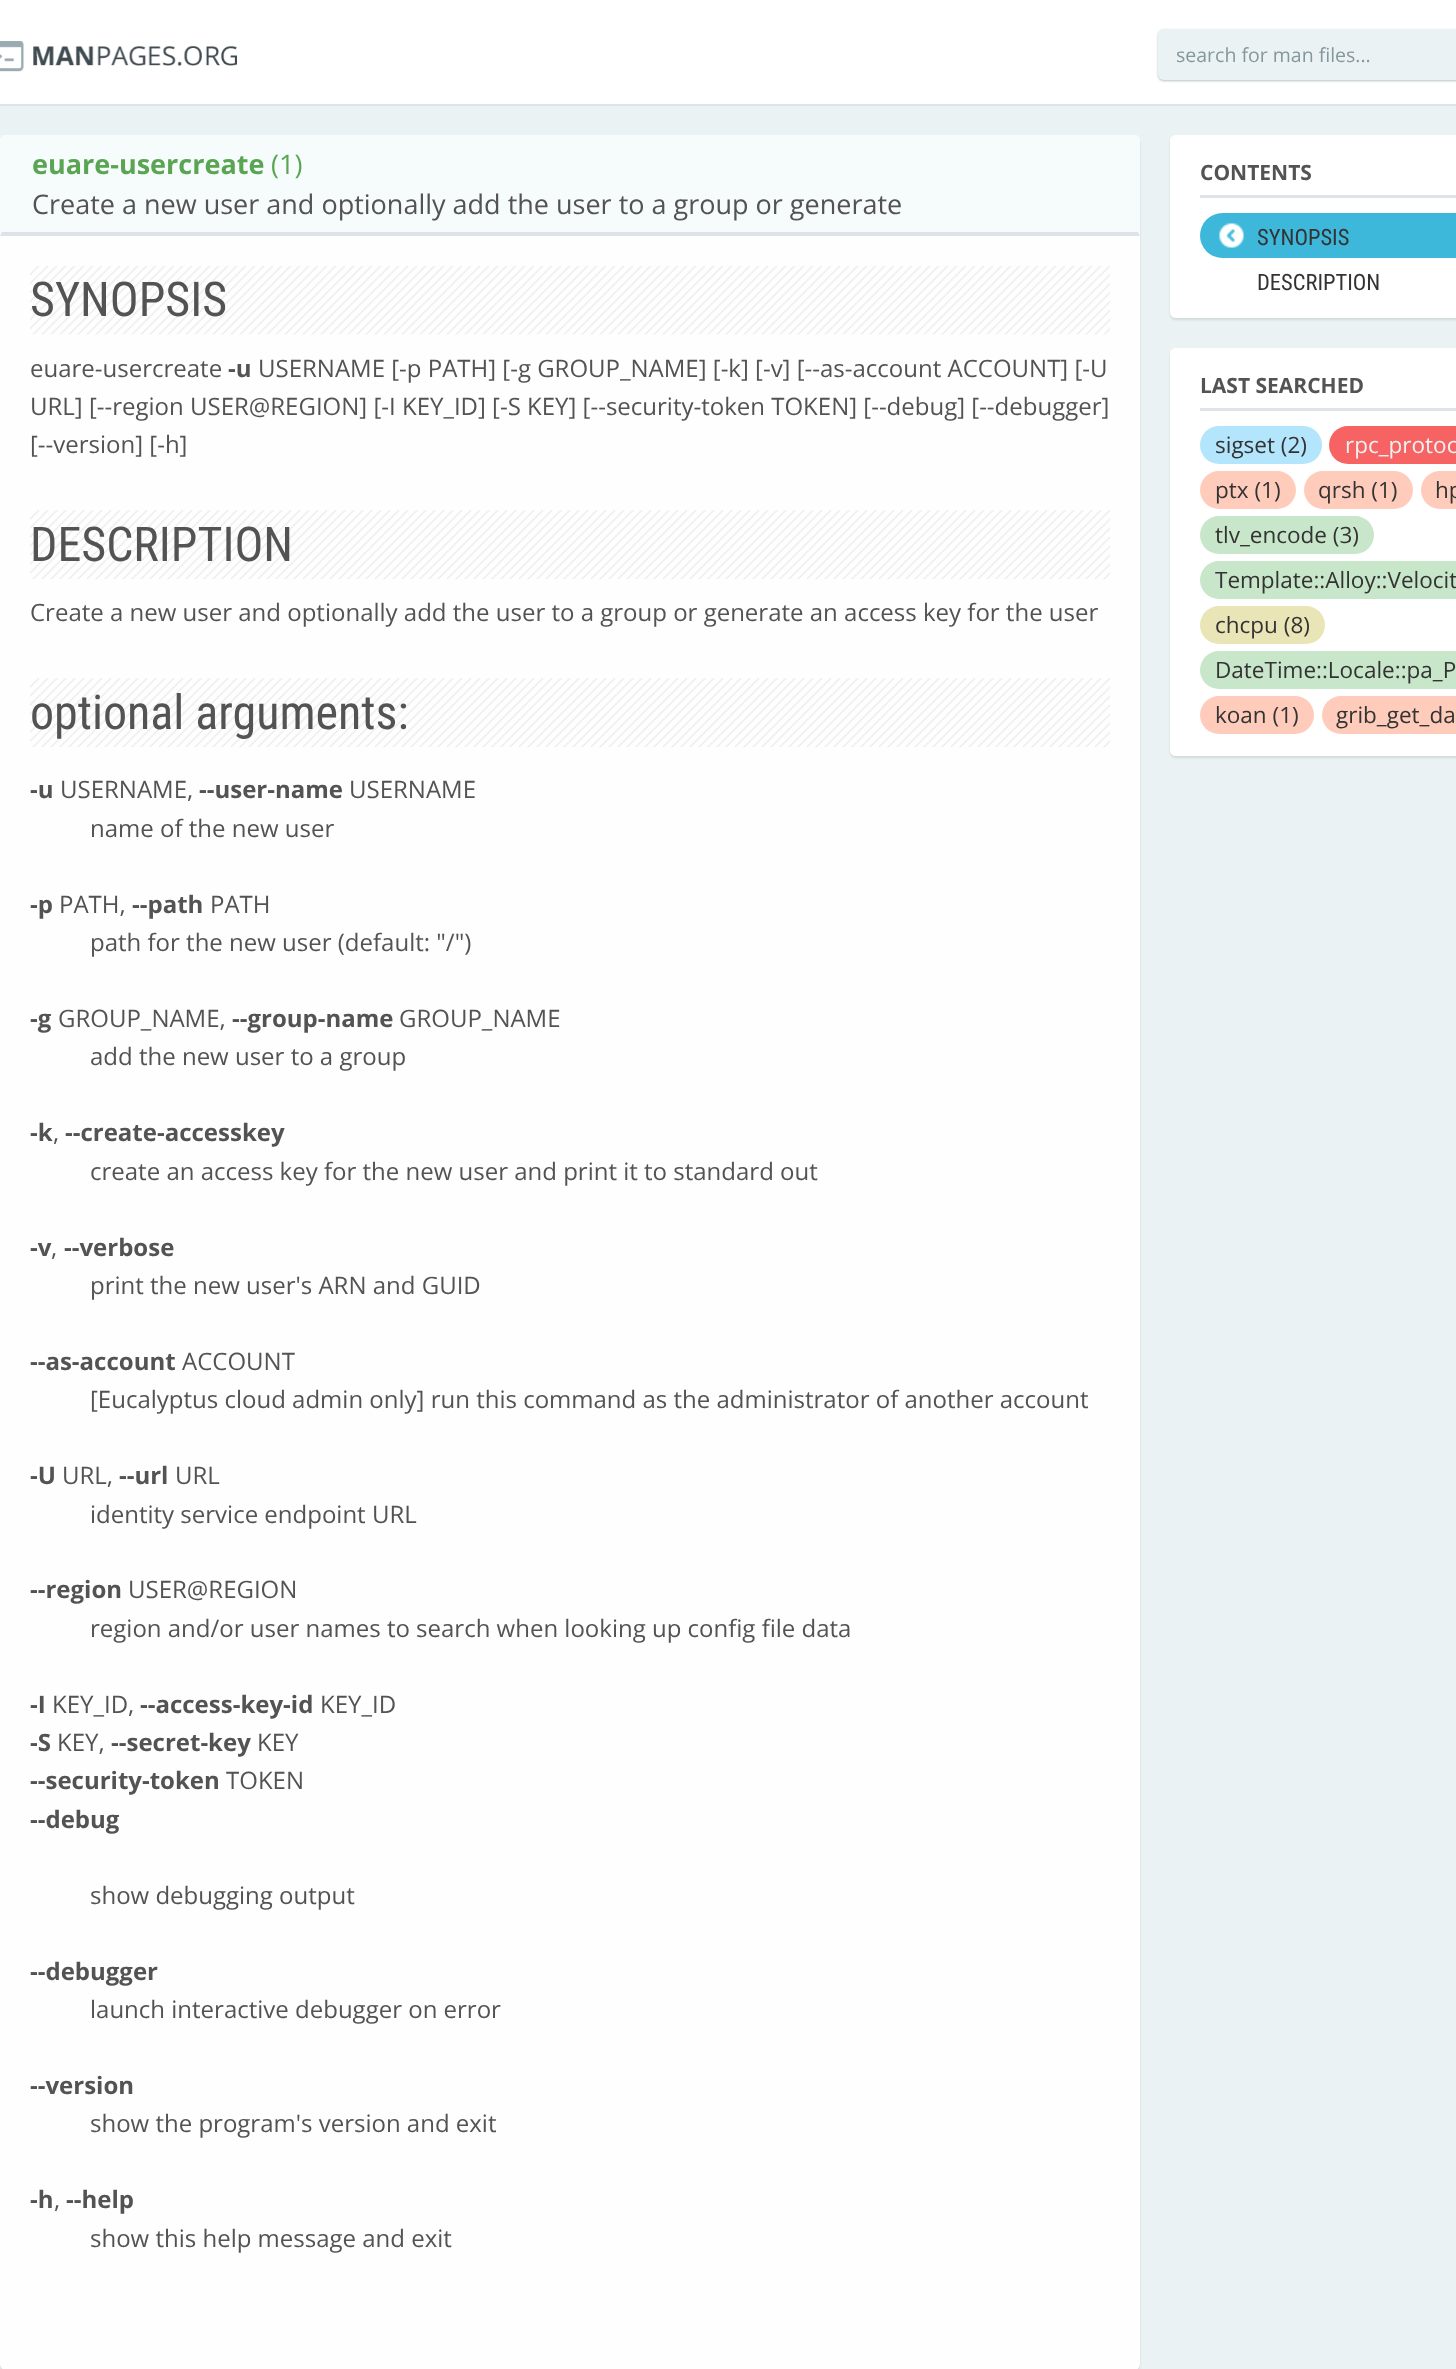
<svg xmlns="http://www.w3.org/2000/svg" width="1456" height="2369">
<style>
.a{font:19.5px Open Sans;fill:#86969d}
.b{font:bold 27px Open Sans;fill:#59a552}
.c{font:27px Open Sans;fill:#59a552}
.d{font:27px Open Sans;fill:#535353}
.e{font:48px Roboto Condensed;fill:#535353}
.f{font:24px Open Sans;fill:#535353}
.g{font:bold 24px Open Sans;fill:#535353}
.h{font:bold 21px Open Sans;fill:#535353}
.i{font:22.5px Roboto Condensed;fill:#333}
.j{font:22.5px Open Sans;fill:#333}
.k{font:22.5px Open Sans;fill:#eaf2f4}
</style>
<rect width="100%" height="100%" fill="#eaf2f4"/>
<path fill="#fff" d="M0 0h1456v104H0z"/>
<path fill="#dce5e7" d="M0 104h1456v2H0z"/>
<image href="1.png" x="0" y="41" width="237" height="31"/>
<rect fill="#062f374d" filter="blur(1px)" x="1158" y="30" width="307" height="51" rx="6"/>
<rect fill="#eaf2f4" x="1158" y="29" width="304" height="51" rx="6"/>
<rect fill="#0000001a" filter="blur(1px)" y="137" width="1140" height="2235" rx="6"/>
<rect fill="#fefefe" y="135" width="1140" height="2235" rx="6"/>
<path fill="#f6fbfc" d="M5 135h1130c3 0 5 2 5 5v96h-1140v-96c0-3 2-5 5-5z"/>
<path fill="#dfe3e9" d="M1140 236h-1140l2-4h1136z"/>
<image href="2.png" x="30" y="266" width="1080" height="69"/>
<image href="3.png" x="30" y="510" width="1080" height="69"/>
<image href="3.png" x="30" y="678" width="1080" height="69"/>
<rect fill="#0000001a" filter="blur(1px)" x="1170" y="137" width="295" height="183" rx="6"/>
<path fill="#fff" d="M1176 135h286v183h-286c-3.5 0-6-2.5-6-6v-171c0-3.5 2.5-6 6-6z"/>
<path fill="#dfe3e9" d="M1200 195h256v3H1200z"/>
<rect fill="#3db8db" x="1200" y="213" width="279" height="45" rx="22.5"/>
<image href="4.png" x="1219" y="223" width="25" height="25"/>
<rect fill="#0000001a" filter="blur(1px)" x="1170" y="350" width="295" height="408" rx="6"/>
<path fill="#fff" d="M1176 348h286v408h-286c-3.5 0-6-2.5-6-6v-396c0-3.5 2.5-6 6-6z"/>
<path fill="#dfe3e9" d="M1200 408h256v3H1200z"/>
<rect fill="#b3e5fc" x="1200" y="426" width="122" height="38" rx="19"/>
<rect fill="#f76363" x="1329" y="426" width="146" height="38" rx="19"/>
<rect fill="#ffccbc" x="1200" y="471" width="96" height="38" rx="19"/>
<rect fill="#ffccbc" x="1304" y="471" width="109" height="38" rx="19"/>
<rect fill="#ffccbc" x="1421" y="471" width="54" height="38" rx="19"/>
<rect fill="#c8e6c9" x="1200" y="516" width="174" height="38" rx="19"/>
<rect fill="#c8e6c9" x="1200" y="561" width="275" height="38" rx="19"/>
<rect fill="#eae5b7" x="1200" y="606" width="125" height="38" rx="19"/>
<rect fill="#c8e6c9" x="1200" y="651" width="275" height="38" rx="19"/>
<rect fill="#ffccbc" x="1200" y="696" width="114" height="38" rx="19"/>
<rect fill="#ffccbc" x="1322" y="696" width="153" height="38" rx="19"/>
<text class="a" x="1176" y="62">search for man files...</text>
<text class="b" x="32" y="174">euare-usercreate</text>
<text class="c" x="271" y="174">(1)</text>
<text class="d" x="32" y="214">Create a new user and optionally add the user to a group or generate</text>
<text class="e" x="30" y="316">SYNOPSIS</text>
<text class="f" x="30" y="377">euare-usercreate</text>
<text class="g" x="228" y="377">-u</text>
<text class="f" x="258" y="377">USERNAME [-p PATH] [-g GROUP_NAME] [-k] [-v] [--as-account ACCOUNT] [-U</text>
<text class="f" x="30" y="415">URL] [--region USER@REGION] [-I KEY_ID] [-S KEY] [--security-token TOKEN] [--debug] [--debugger]</text>
<text class="f" x="30" y="453">[--version] [-h]</text>
<text class="e" x="30" y="561">DESCRIPTION</text>
<text class="f" x="30" y="621">Create a new user and optionally add the user to a group or generate an access key for the user</text>
<text class="e" x="30" y="729">optional arguments:</text>
<text class="g" x="30" y="798">-u</text>
<text class="f" x="60" y="798">USERNAME,</text>
<text class="g" x="199" y="798">--user-name</text>
<text class="f" x="349" y="798">USERNAME</text>
<text class="f" x="90" y="837">name of the new user</text>
<text class="g" x="30" y="913">-p</text>
<text class="f" x="59" y="913">PATH,</text>
<text class="g" x="132" y="913">--path</text>
<text class="f" x="210" y="913">PATH</text>
<text class="f" x="90" y="951">path for the new user (default: "/")</text>
<text class="g" x="30" y="1027">-g</text>
<text class="f" x="58" y="1027">GROUP_NAME,</text>
<text class="g" x="232" y="1027">--group-name</text>
<text class="f" x="399" y="1027">GROUP_NAME</text>
<text class="f" x="90" y="1065">add the new user to a group</text>
<text class="g" x="30" y="1141">-k</text>
<text class="f" x="53" y="1141">,</text>
<text class="g" x="65" y="1141">--create-accesskey</text>
<text class="f" x="90" y="1180">create an access key for the new user and print it to standard out</text>
<text class="g" x="30" y="1256">-v</text>
<text class="f" x="51" y="1256">,</text>
<text class="g" x="64" y="1256">--verbose</text>
<text class="f" x="90" y="1294">print the new user's ARN and GUID</text>
<text class="g" x="30" y="1370">--as-account</text>
<text class="f" x="182" y="1370">ACCOUNT</text>
<text class="f" x="90" y="1408">[Eucalyptus cloud admin only] run this command as the administrator of another account</text>
<text class="g" x="30" y="1484">-U</text>
<text class="f" x="62" y="1484">URL,</text>
<text class="g" x="119" y="1484">--url</text>
<text class="f" x="175" y="1484">URL</text>
<text class="f" x="90" y="1523">identity service endpoint URL</text>
<text class="g" x="30" y="1598">--region</text>
<text class="f" x="128" y="1598">USER@REGION</text>
<text class="f" x="90" y="1637">region and/or user names to search when looking up config file data</text>
<text class="g" x="30" y="1713">-I</text>
<text class="f" x="52" y="1713">KEY_ID,</text>
<text class="g" x="140" y="1713">--access-key-id</text>
<text class="f" x="320" y="1713">KEY_ID</text>
<text class="g" x="30" y="1751">-S</text>
<text class="f" x="57" y="1751">KEY,</text>
<text class="g" x="111" y="1751">--secret-key</text>
<text class="f" x="257" y="1751">KEY</text>
<text class="g" x="30" y="1789">--security-token</text>
<text class="f" x="226" y="1789">TOKEN</text>
<text class="g" x="30" y="1828">--debug</text>
<text class="f" x="90" y="1904">show debugging output</text>
<text class="g" x="30" y="1980">--debugger</text>
<text class="f" x="90" y="2018">launch interactive debugger on error</text>
<text class="g" x="30" y="2094">--version</text>
<text class="f" x="90" y="2132">show the program's version and exit</text>
<text class="g" x="30" y="2208">-h</text>
<text class="f" x="54" y="2208">,</text>
<text class="g" x="66" y="2208">--help</text>
<text class="f" x="90" y="2247">show this help message and exit</text>
<text class="h" x="1200" y="180">CONTENTS</text>
<text class="i" x="1257" y="245">SYNOPSIS</text>
<text class="i" x="1257" y="290">DESCRIPTION</text>
<text class="h" x="1200" y="393">LAST SEARCHED</text>
<text class="j" x="1215" y="453">sigset (2)</text>
<text class="k" x="1345" y="453">rpc_protoc</text>
<text class="j" x="1215" y="498">ptx (1)</text>
<text class="j" x="1318" y="498">qrsh (1)</text>
<text class="j" x="1435" y="498">hp</text>
<text class="j" x="1215" y="543">tlv_encode (3)</text>
<text class="j" x="1215" y="588">Template::Alloy::Velocit</text>
<text class="j" x="1215" y="633">chcpu (8)</text>
<text class="j" x="1215" y="678">DateTime::Locale::pa_P</text>
<text class="j" x="1215" y="723">koan (1)</text>
<text class="j" x="1336" y="723">grib_get_da</text>
</svg>
